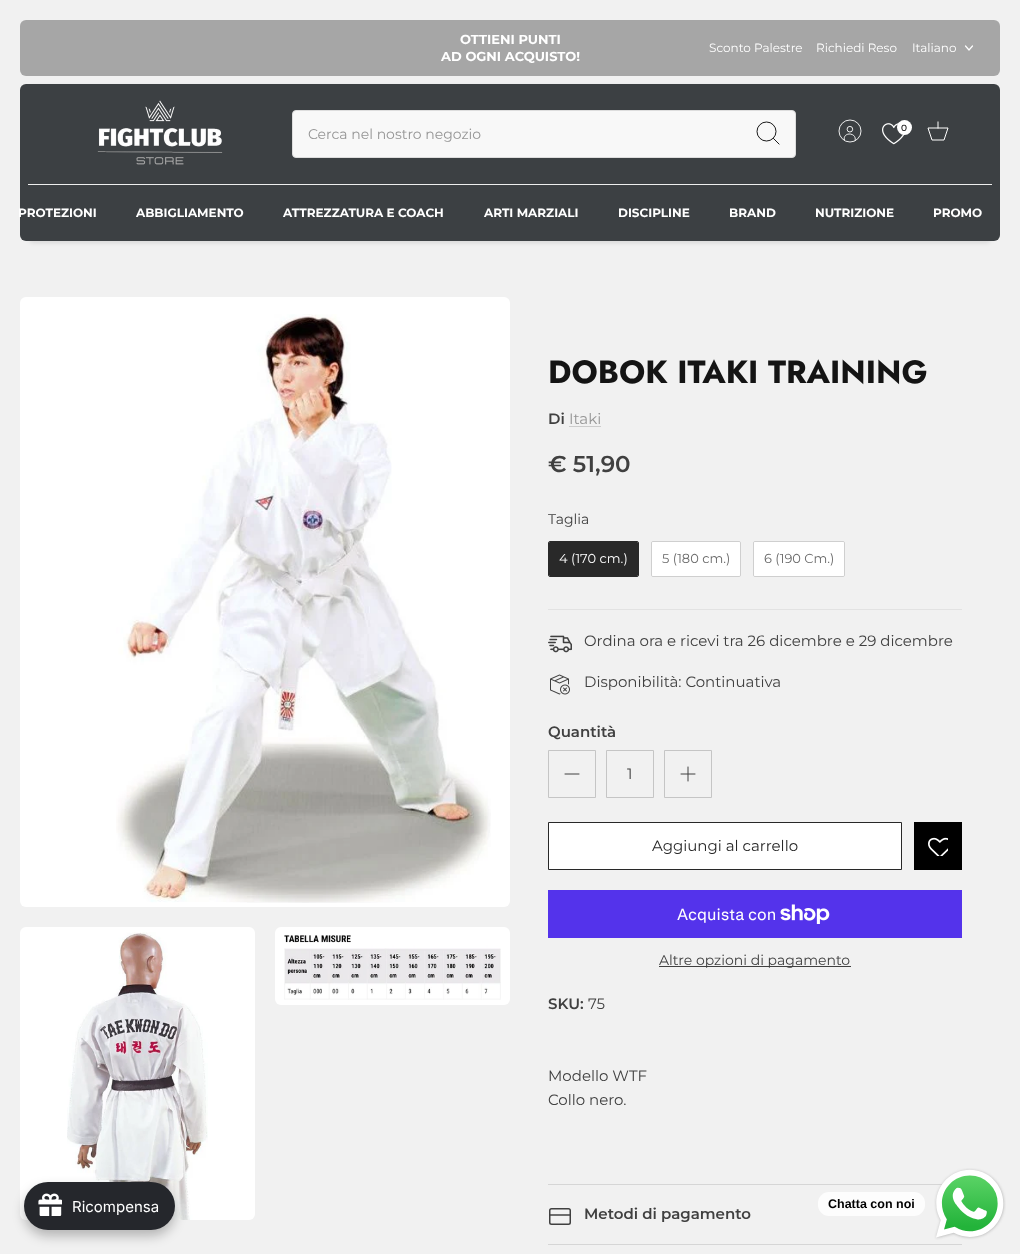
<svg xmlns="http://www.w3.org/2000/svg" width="1020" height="1254">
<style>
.a{font:bold 13px Montserrat;fill:#fff}
.b{font:12px Montserrat;fill:#fff}
.c{font:14px Montserrat;fill:#959595}
.d{font:500 9px Montserrat;fill:#000}
.e{font:bold 12px Montserrat;fill:#fff}
.f{font:bold 32px Jost;fill:#141414}
.g{font:600 15px Montserrat;fill:#404040}
.h{font:15px Montserrat;fill:#959595}
.i{font:600 23px Montserrat;fill:#404040}
.j{font:14px Montserrat;fill:#404040}
.k{font:13px Montserrat;fill:#fff}
.l{font:13px Montserrat;fill:#6a6a6a}
.m{font:15px Montserrat;fill:#404040}
.n{font:15px Montserrat;fill:#282828}
.o{font:16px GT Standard;fill:#fff}
.p{font:15px Inter;fill:#fff}
.q{font:bold 12.5px Liberation Sans;fill:#000}
</style>
<rect width="100%" height="100%" fill="#f1f1f1"/>
<rect fill="#a6a6a6" x="20" y="20" width="980" height="56" rx="6"/>
<path fill="none" stroke="#fff" stroke-width="1.2" stroke-linecap="round" stroke-linejoin="round" d="M965.5 46l3.5 4l3.5-4"/>
<rect fill="#0000001a" filter="blur(2px)" x="28" y="86" width="964" height="157" rx="6"/>
<rect fill="#3c4043" x="20" y="84" width="980" height="157" rx="6"/>
<image href="1.png" x="97" y="100" width="126" height="65"/>
<rect fill="#f8f8f8" stroke="#ddd" x="292.5" y="110.5" width="503" height="47" rx="3.5"/>
<circle fill="none" stroke="#000" stroke-width="0.9" cx="766.5" cy="131.5" r="9.5"/>
<path fill="none" stroke="#000" stroke-width="0.9" stroke-linecap="square" d="M773.5 138.5l5.5 5.5"/>
<circle fill="none" stroke="#fff" stroke-width="0.9" cx="849.9" cy="129.2" r="2.8"/>
<path fill="none" stroke="#fff" stroke-width="0.9" d="M855 141c2.5-9-13-9.5-10.5-.5"/>
<circle fill="none" stroke="#fff" stroke-width="0.9" cx="850" cy="131" r="11"/>
<image href="2.png" x="882" y="123" width="23" height="22"/>
<circle fill="#fff" cx="904.5" cy="127.5" r="7.5"/>
<path fill="none" stroke="#fff" d="M928 128h20l-4 12h-12z"/>
<path fill="none" stroke="#fff" stroke-linecap="square" d="M938 128v-6"/>
<path fill="#eee" d="M28 184h964v1H28z"/>
<rect fill="#fff" x="20" y="297" width="490" height="610" rx="6"/>
<image href="3.png" x="116" y="314" width="375" height="589"/>
<rect fill="#fff" x="20" y="927" width="235" height="293" rx="6"/>
<image href="4.png" x="67" y="932" width="141" height="288"/>
<rect fill="#fff" x="275" y="927" width="235" height="78" rx="6"/>
<image href="5.png" x="284" y="935" width="217" height="65"/>
<path fill="#ccc" d="M569 426h32v1H569z"/>
<rect fill="none" stroke="#292929" x="548.5" y="541.5" width="90" height="35" rx="1.5"/>
<rect fill="#292929" x="549" y="542" width="89" height="34" rx="1"/>
<rect fill="none" stroke="#cfcfcf" x="651.5" y="541.5" width="89" height="35" rx="1.5"/>
<rect fill="#fff" x="652" y="542" width="88" height="34" rx="1"/>
<rect fill="none" stroke="#cfcfcf" x="753.5" y="541.5" width="91" height="35" rx="1.5"/>
<rect fill="#fff" x="754" y="542" width="90" height="34" rx="1"/>
<path fill="#e2e2e2" d="M548 609h414v1H548z"/>
<image href="6.png" x="548" y="635" width="24" height="18"/>
<image href="7.png" x="550" y="674" width="20" height="21"/>
<path fill="none" stroke="#c5c5c5" d="M548.5 750.5h47v47H548.5z"/>
<path fill="none" stroke="#404040" stroke-linecap="round" stroke-linejoin="round" d="M565 774h14"/>
<path fill="none" stroke="#c5c5c5" d="M606.5 750.5h47v47H606.5z"/>
<path fill="none" stroke="#c5c5c5" d="M664.5 750.5h47v47H664.5z"/>
<path fill="none" stroke="#404040" stroke-linecap="round" stroke-linejoin="round" d="M688 767v14m-7-7h14"/>
<path fill="#fff" stroke="#282828" d="M548.5 822.5h353v47H548.5z"/>
<path fill="#000" d="M914 822h48v48H914z"/>
<image href="8.png" x="928" y="837" width="20" height="19"/>
<path fill="#5433eb" d="M548 890h414v48H548z"/>
<image href="9.png" x="780" y="904" width="50" height="20"/>
<path fill="#404040" d="M659 966h192v1H659z"/>
<path fill="#d6d6d6" d="M548 1184h395v1H548z"/>
<path fill="#d6d6d6" d="M548 1244h414v1H548z"/>
<rect fill="none" stroke="#404040" stroke-width="1.5" x="549.75" y="1208.75" width="20.5" height="15.5" rx="1.75"/>
<path fill="#404040bf" d="M550 1214h21v2H550z"/>
<rect fill="#00000040" filter="blur(6px)" x="24" y="1188" width="151" height="48" rx="24"/>
<rect fill="#25272c" x="24" y="1182" width="151" height="48" rx="24"/>
<image href="10.png" x="38" y="1193" width="24" height="23"/>
<rect fill="#fdfdfd" x="818" y="1192" width="107" height="24" rx="11"/>
<image href="11.png" x="934" y="1168" width="72" height="72"/>
<text class="a" x="460" y="44">OTTIENI PUNTI</text>
<text class="a" x="441" y="61">AD OGNI ACQUISTO!</text>
<text class="b" x="709" y="52">Sconto Palestre</text>
<text class="b" x="816" y="52">Richiedi Reso</text>
<text class="b" x="912" y="52">Italiano</text>
<text class="c" x="308" y="139">Cerca nel nostro negozio</text>
<text class="d" x="901" y="131">0</text>
<text class="e" x="18" y="217">PROTEZIONI</text>
<text class="e" x="136" y="217">ABBIGLIAMENTO</text>
<text class="e" x="283" y="217">ATTREZZATURA E COACH</text>
<text class="e" x="484" y="217">ARTI MARZIALI</text>
<text class="e" x="618" y="217">DISCIPLINE</text>
<text class="e" x="729" y="217">BRAND</text>
<text class="e" x="815" y="217">NUTRIZIONE</text>
<text class="e" x="933" y="217">PROMO</text>
<text class="f" x="548" y="383">DOBOK ITAKI TRAINING</text>
<text class="g" x="548" y="424">Di</text>
<text class="h" x="569" y="424">Itaki</text>
<text class="i" x="548" y="472">€ 51,90</text>
<text class="j" x="548" y="524">Taglia</text>
<text class="k" x="559" y="563">4 (170 cm.)</text>
<text class="l" x="662" y="563">5 (180 cm.)</text>
<text class="l" x="764" y="563">6 (190 Cm.)</text>
<text class="m" x="584" y="646">Ordina ora e ricevi tra 26 dicembre e 29 dicembre</text>
<text class="m" x="584" y="687">Disponibilità: Continuativa</text>
<text class="g" x="548" y="737">Quantità</text>
<text class="m" x="627" y="779">1</text>
<text class="n" x="652" y="851">Aggiungi al carrello</text>
<text class="o" x="677" y="920">Acquista con</text>
<text class="j" x="659" y="965">Altre opzioni di pagamento</text>
<text class="g" x="548" y="1009">SKU:</text>
<text class="m" x="588" y="1009">75</text>
<text class="m" x="548" y="1081">Modello WTF</text>
<text class="m" x="548" y="1105">Collo nero.</text>
<text class="g" x="584" y="1219">Metodi di pagamento</text>
<text class="p" x="72" y="1212">Ricompensa</text>
<text class="q" x="828" y="1208">Chatta con noi</text>
</svg>
